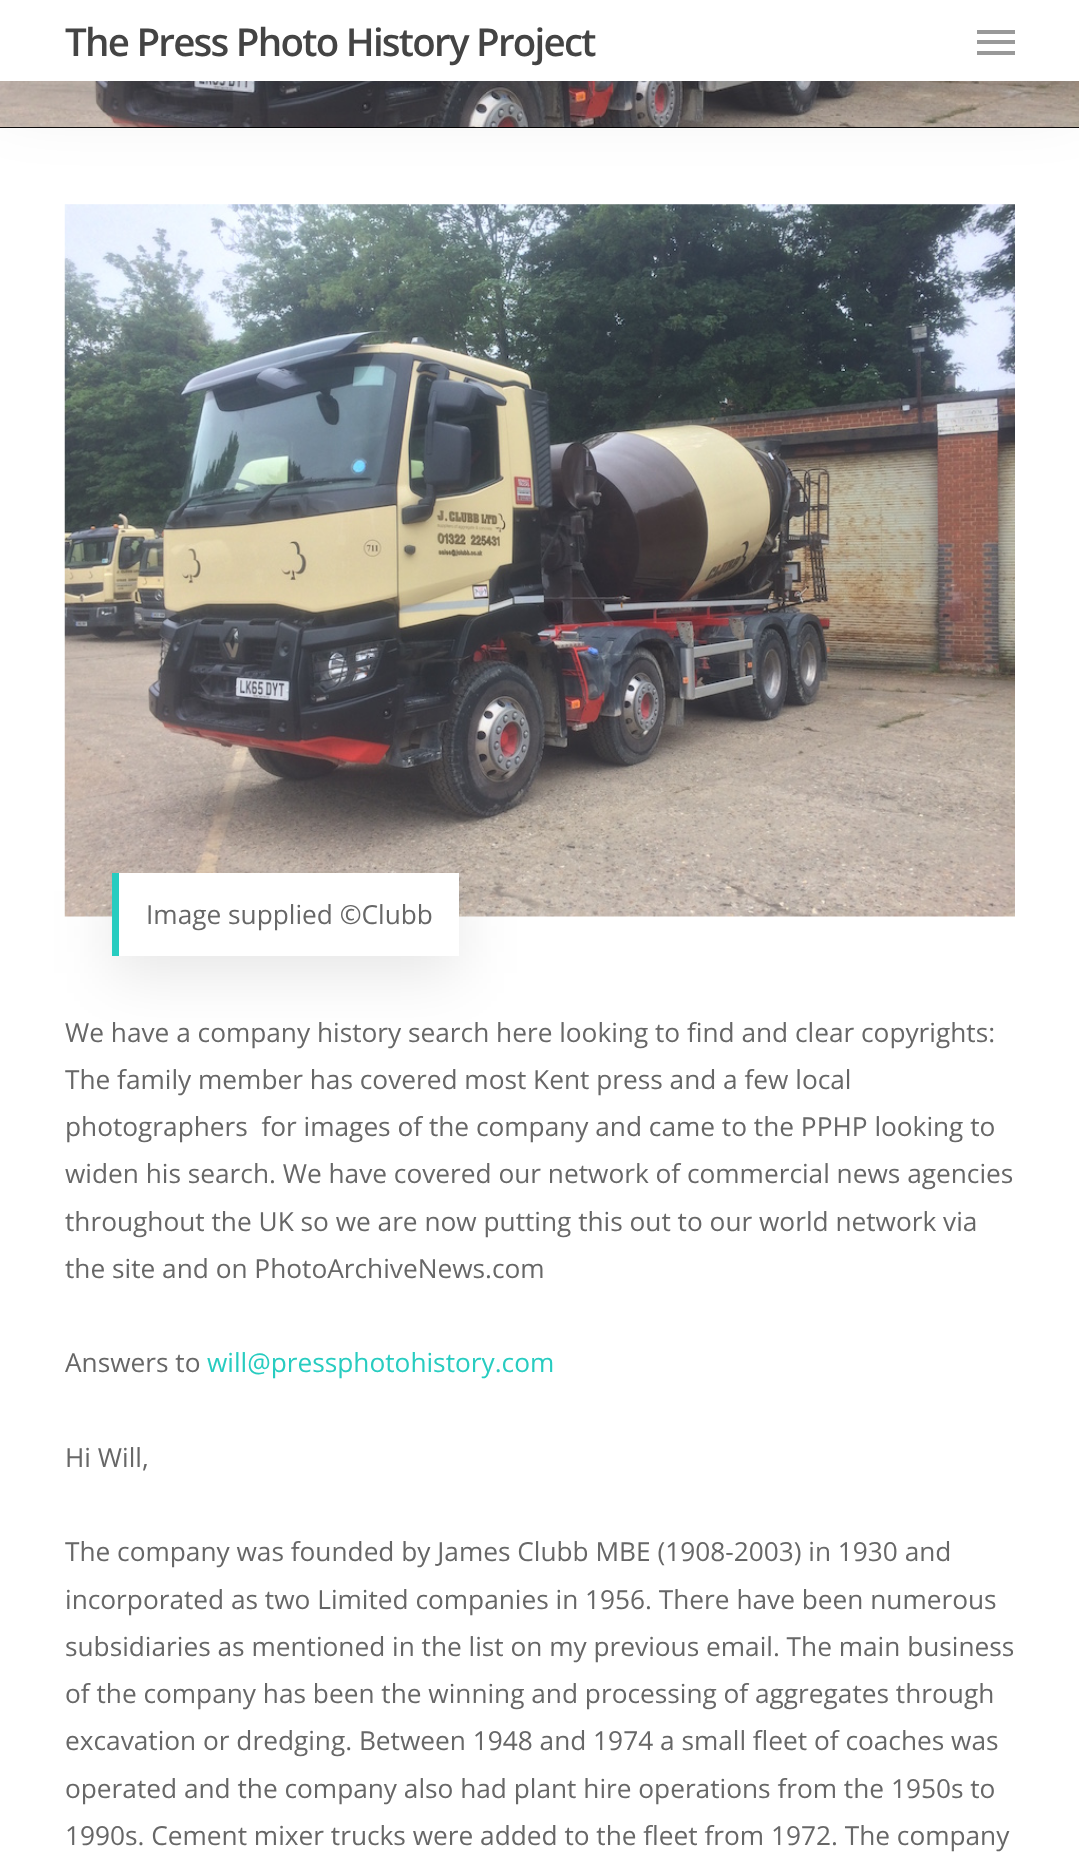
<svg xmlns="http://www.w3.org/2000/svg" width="1079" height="1858">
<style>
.a{font:600 38.5px Open Sans;letter-spacing:-1.75px;fill:#444}
.b{font:26.25px Open Sans;fill:#676767}
.c{font:26.25px Open Sans;fill:#27ccc0}
</style>
<rect width="100%" height="100%" fill="#fff"/>
<path fill="#000" d="M0 127h1079v1H0z"/>
<image href="1.png" x="0" y="81" width="1079" height="47"/>
<image href="2.png" x="64" y="204" width="951" height="713"/>
<path fill="#00000026" filter="blur(39.5px)" d="M0 5h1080v81H0z"/>
<path fill="#fff" d="M0 0h1079v81H0z"/>
<path fill="#999" d="M977 30h38v4H977z"/>
<path fill="#999" d="M977 51h38v4H977z"/>
<path fill="#999" d="M977 40h38v4H977z"/>
<path fill="#0000001a" filter="blur(30.5px)" d="M112 891h347v82H112z"/>
<path fill="#fff" d="M119 873h340v83H119z"/>
<path fill="#27ccc0" d="M112 873h7v83H112z"/>
<text class="a" x="65" y="56">The Press Photo History Project</text>
<text class="b" x="146" y="924">Image supplied ©Clubb</text>
<text class="b" x="65" y="1042">We have a company history search here looking to find and clear copyrights:</text>
<text class="b" x="65" y="1089">The family member has covered most Kent press and a few local</text>
<text class="b" xml:space="preserve" x="65" y="1136">photographers  for images of the company and came to the PPHP looking to</text>
<text class="b" x="65" y="1183">widen his search. We have covered our network of commercial news agencies</text>
<text class="b" x="65" y="1231">throughout the UK so we are now putting this out to our world network via</text>
<text class="b" x="65" y="1278">the site and on PhotoArchiveNews.com</text>
<text class="b" x="65" y="1372">Answers to</text>
<text class="c" x="207" y="1372">will@pressphotohistory.com</text>
<text class="b" x="65" y="1467">Hi Will,</text>
<text class="b" x="65" y="1561">The company was founded by James Clubb MBE (1908-2003) in 1930 and</text>
<text class="b" x="65" y="1609">incorporated as two Limited companies in 1956. There have been numerous</text>
<text class="b" x="65" y="1656">subsidiaries as mentioned in the list on my previous email. The main business</text>
<text class="b" x="65" y="1703">of the company has been the winning and processing of aggregates through</text>
<text class="b" x="65" y="1750">excavation or dredging. Between 1948 and 1974 a small fleet of coaches was</text>
<text class="b" x="65" y="1798">operated and the company also had plant hire operations from the 1950s to</text>
<text class="b" x="65" y="1845">1990s. Cement mixer trucks were added to the fleet from 1972. The company</text>
</svg>
